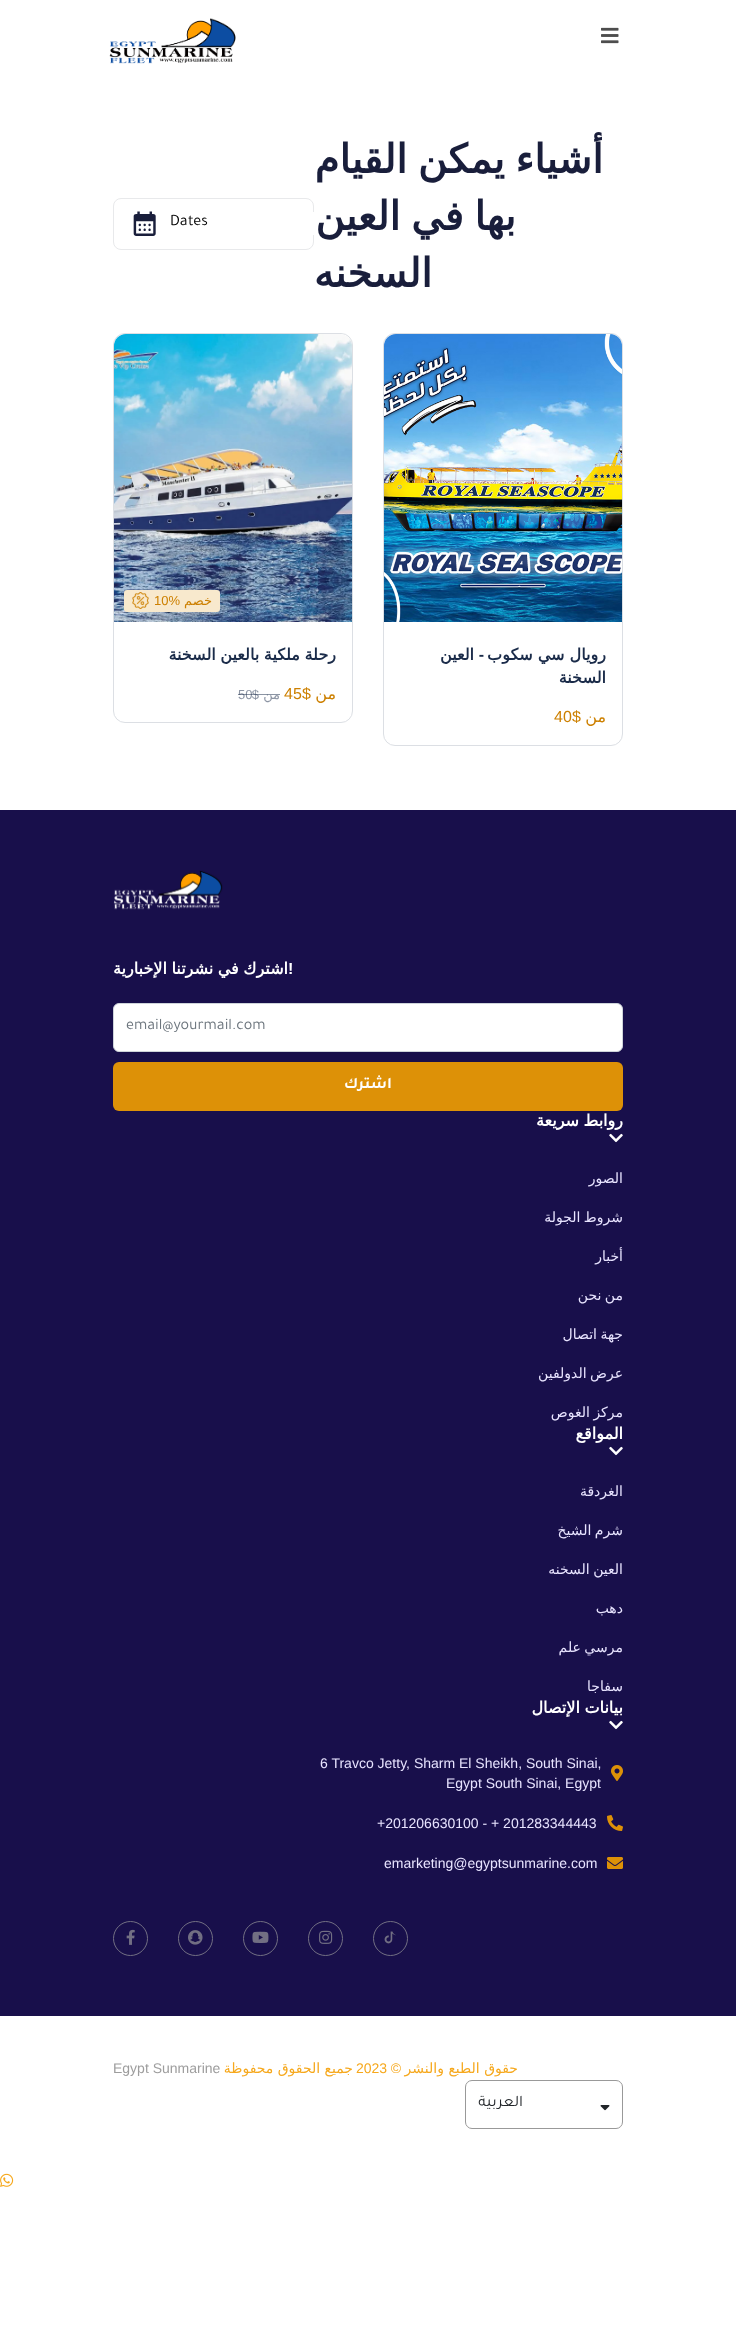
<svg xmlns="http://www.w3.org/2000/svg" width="736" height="2345">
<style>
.a{font:bold 40px DejaVu Sans;direction:rtl;fill:#191e3b}
.b{font:16px Tajawal;fill:#000}
.c{font:bold 16px DejaVu Sans;direction:rtl;fill:#1a2b49}
.d{font:bold 16px Liberation Sans;direction:rtl;fill:#1a2b49}
.e{font:16px DejaVu Sans;direction:rtl;fill:#cd8001}
.f{font:16px Liberation Sans;direction:rtl;fill:#cd8001}
.g{font:16px Liberation Sans;fill:#cd8001}
.h{font:13px DejaVu Sans;direction:rtl;fill:#cd8001}
.i{font:13px Liberation Sans;fill:#cd8001}
.j{font:13px DejaVu Sans;direction:rtl;fill:#8d95a4}
.k{font:13px Liberation Sans;direction:rtl;fill:#8d95a4}
.l{font:13px Liberation Sans;fill:#8d95a4}
.m{font:bold 16px Liberation Sans;fill:#fff}
.n{font:bold 16px DejaVu Sans;direction:rtl;fill:#fff}
.o{font:16px Tajawal;fill:#6c757d}
.p{font:bold 16px Tajawal;direction:rtl;fill:#fff}
.q{font:14px DejaVu Sans;direction:rtl;fill:#e8e4ff}
.r{font:14px Liberation Sans;fill:#e8e4ff}
.s{font:14px DejaVu Sans;direction:rtl;fill:#f6a81c}
.t{font:14px Liberation Sans;direction:rtl;fill:#f6a81c}
.u{font:14px Liberation Sans;fill:#f6a81c}
.v{font:14px Liberation Sans;fill:#9d9d9d}
.w{font:16px Tajawal;direction:rtl;fill:#212529}
</style>
<rect width="100%" height="100%" fill="#fff"/>
<image href="1.png" x="601" y="27" width="18" height="17"/>
<image href="2.png" x="109" y="18" width="127" height="46"/>
<rect fill="none" stroke="#e8e9eb" x="113.5" y="198.5" width="200" height="51" rx="7.5"/>
<path fill="#fff" d="M313 212h1v23H313z"/>
<image href="3.png" x="133" y="211" width="23" height="25"/>
<rect fill="none" stroke="#dcdfe4" x="383.5" y="333.5" width="239" height="412" rx="11.5"/>
<image href="4.png" x="384" y="334" width="238" height="288"/>
<rect fill="none" stroke="#dcdfe4" x="113.5" y="333.5" width="239" height="389" rx="11.5"/>
<image href="5.png" x="114" y="334" width="238" height="288"/>
<rect fill="#f8e9cd" x="124" y="590" width="96" height="22" rx="3"/>
<image href="6.png" x="132" y="592" width="17" height="17"/>
<path fill="#180f4b" d="M0 810h736v1206H0z"/>
<image href="7.png" x="113" y="870" width="110" height="40"/>
<rect fill="#fff" stroke="#ced4da" x="113.5" y="1003.5" width="509" height="48" rx="5.5"/>
<rect fill="#dd9107" x="113" y="1062" width="510" height="49" rx="6"/>
<image href="8.png" x="609" y="1133" width="14" height="10"/>
<image href="8.png" x="609" y="1446" width="14" height="10"/>
<image href="8.png" x="609" y="1720" width="14" height="10"/>
<image href="9.png" x="611" y="1765" width="12" height="16"/>
<image href="10.png" x="607" y="1815" width="16" height="16"/>
<image href="11.png" x="607" y="1857" width="16" height="12"/>
<circle fill="none" stroke="#726f83" cx="390.5" cy="1938.5" r="17"/>
<image href="12.png" x="384" y="1931" width="12" height="13"/>
<circle fill="none" stroke="#726f83" cx="325.5" cy="1938.5" r="17"/>
<image href="13.png" x="319" y="1930" width="14" height="14"/>
<circle fill="none" stroke="#726f83" cx="260.5" cy="1938.5" r="17"/>
<image href="14.png" x="252" y="1931" width="17" height="12"/>
<circle fill="none" stroke="#726f83" cx="195.5" cy="1938.5" r="17"/>
<image href="15.png" x="188" y="1930" width="15" height="15"/>
<circle fill="none" stroke="#726f83" cx="130.5" cy="1938.5" r="17"/>
<image href="16.png" x="126" y="1929" width="9" height="16"/>
<rect fill="none" stroke="#999" x="465.5" y="2080.5" width="157" height="48" rx="6.5"/>
<image href="17.png" x="600" y="2105" width="10" height="6"/>
<image href="18.png" x="0" y="2173" width="14" height="14"/>
<text class="a" x="603" y="173" word-spacing="-2">أشياء يمكن القيام</text>
<text class="a" x="516" y="230" word-spacing="-2">بها في العين</text>
<text class="a" x="432" y="287">السخنه</text>
<text class="b" x="170" y="225">Dates</text>
<text class="c" x="606" y="660">رويال سي سكوب</text>
<text class="d" x="484" y="660">-</text>
<text class="c" x="474" y="660">العين</text>
<text class="c" x="606" y="683">السخنة</text>
<text class="e" x="606" y="722">من</text>
<text class="f" x="581" y="722">$</text>
<text class="g" x="554" y="722">40</text>
<text class="h" x="212" y="605">خصم</text>
<text class="i" x="154" y="605">10%</text>
<text class="c" x="336" y="660" word-spacing="-0.5">رحلة ملكية بالعين السخنة</text>
<text class="e" x="336" y="699">من</text>
<text class="f" x="311" y="699">$</text>
<text class="g" x="284" y="699">45</text>
<text class="j" x="280" y="699">من</text>
<text class="k" x="259" y="699">$</text>
<text class="l" x="238" y="699">50</text>
<path fill="#1a2b4980" d="M238 694h14v1H238z"/>
<path fill="#1a2b4980" d="M252 694h28v1H252z"/>
<text class="m" x="288" y="974">!</text>
<text class="n" x="288" y="974" word-spacing="-0.5">اشترك في نشرتنا الإخبارية</text>
<text class="o" x="126" y="1029">email@yourmail.com</text>
<text class="p" x="392" y="1088">اشترك</text>
<text class="n" x="623" y="1126" word-spacing="-0.5">روابط سريعة</text>
<text class="q" x="623" y="1183">الصور</text>
<text class="q" x="623" y="1222" word-spacing="-1">شروط الجولة</text>
<text class="q" x="623" y="1261">أخبار</text>
<text class="q" x="623" y="1300" word-spacing="-1">من نحن</text>
<text class="q" x="623" y="1339" word-spacing="-1">جهة اتصال</text>
<text class="q" x="623" y="1378" word-spacing="-1">عرض الدولفين</text>
<text class="q" x="623" y="1417" word-spacing="-1">مركز الغوص</text>
<text class="n" x="623" y="1439">المواقع</text>
<text class="q" x="623" y="1496">الغردقة</text>
<text class="q" x="623" y="1535" word-spacing="-1">شرم الشيخ</text>
<text class="q" x="623" y="1574" word-spacing="-1">العين السخنه</text>
<text class="q" x="623" y="1613">دهب</text>
<text class="q" x="623" y="1652" word-spacing="-1">مرسي علم</text>
<text class="q" x="623" y="1691">سفاجا</text>
<text class="n" x="623" y="1713" word-spacing="-0.5">بيانات الإتصال</text>
<text class="r" x="320" y="1768">6 Travco Jetty, Sharm El Sheikh, South Sinai,</text>
<text class="r" x="446" y="1788">Egypt South Sinai, Egypt</text>
<text class="r" x="377" y="1828">+201206630100 - + 201283344443</text>
<text class="r" x="384" y="1868">emarketing@egyptsunmarine.com</text>
<text class="s" x="518" y="2073">حقوق الطبع والنشر</text>
<text class="t" x="401" y="2073">©</text>
<text class="u" x="356" y="2073">2023</text>
<text class="s" x="353" y="2073">جميع الحقوق محفوظة</text>
<text class="v" x="113" y="2073">Egypt Sunmarine</text>
<text class="w" x="523" y="2106">العربية</text>
</svg>
